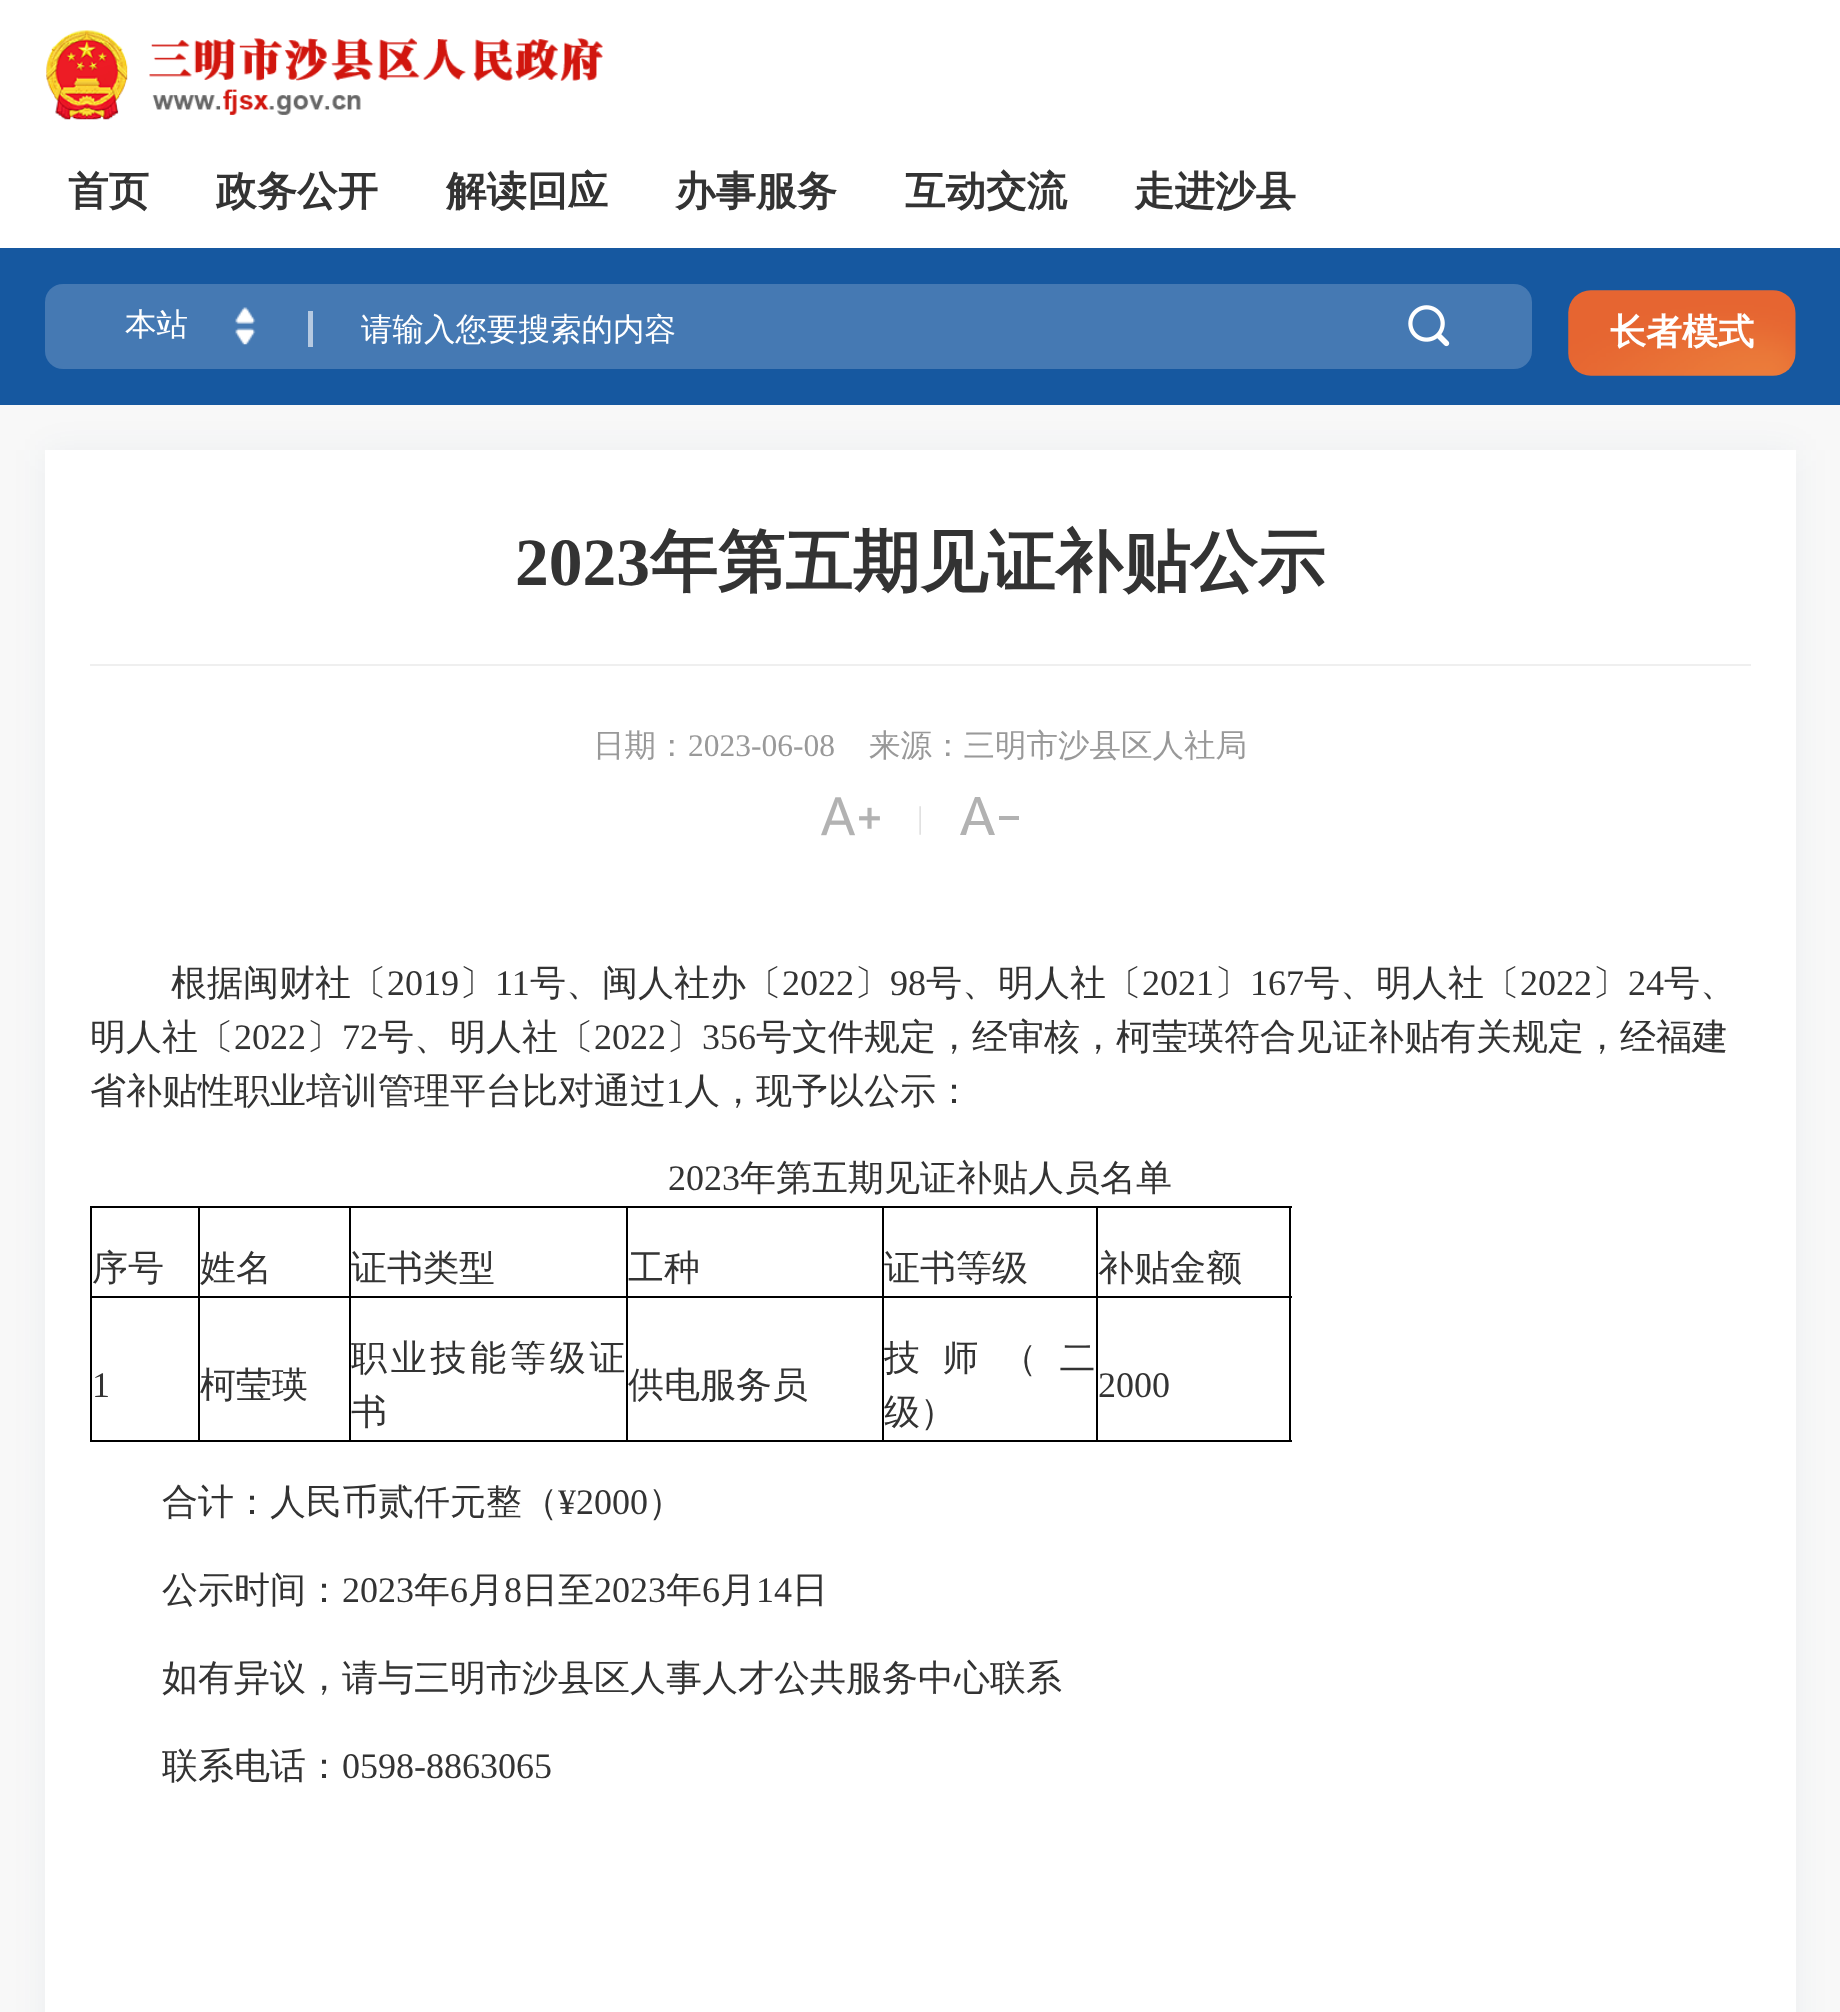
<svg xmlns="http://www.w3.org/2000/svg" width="1840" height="2012">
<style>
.a{font:bold 40.5px WenQuanYi Zen Hei;fill:#333}
.b{font:500 31.5px WenQuanYi Zen Hei;fill:#fff}
.c{font:bold 36px WenQuanYi Zen Hei;fill:#fff}
.d{font:bold 67.5px Liberation Serif;fill:#333}
.e{font:bold 67.5px WenQuanYi Zen Hei;fill:#333}
.f{font:500 31.5px WenQuanYi Zen Hei;fill:#999}
.g{font:31.5px Liberation Serif;fill:#999}
.h{font:31.5px Liberation Serif;fill:#e0e0e0}
.i{font:500 36px WenQuanYi Zen Hei;fill:#333}
.j{font:36px Liberation Serif;fill:#333}
.k{font:500 36px WenQuanYi Zen Hei;letter-spacing:3.75px;fill:#333}
.l{font:500 36px WenQuanYi Zen Hei;letter-spacing:22.5px;fill:#333}
</style>
<rect width="100%" height="100%" fill="#f8f8f8"/>
<path fill="#fff" d="M0 0h1840v248H0z"/>
<image href="1.png" x="46" y="30" width="82" height="90"/>
<image href="2.png" x="149" y="38" width="454" height="77"/>
<path fill="#0d39690d" filter="blur(17px)" d="M45 450h1751v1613H45z"/>
<path fill="#1658a0" d="M0 248h1840v157H0z"/>
<rect fill="#4579b3" x="45" y="284" width="1487" height="85" rx="18"/>
<image href="3.png" x="235" y="307" width="21" height="38"/>
<path fill="#b5c9e1" d="M308 311h5v36H308z"/>
<image href="4.png" x="1408" y="305" width="42" height="42"/>
<image href="5.png" x="1568" y="290" width="228" height="86"/>
<path fill="#fff" d="M45 450h1751v1562H45z"/>
<path fill="#efefef" d="M90 664h1661v2H90z"/>
<image href="6.png" x="821" y="797" width="59" height="39"/>
<path fill="#b2b2b2" d="M995 835h-6l-4-10h-16l-3 10h-6l15-38h5zm-11-14l-7-19l-6 19zm15-5h20v4h-20z"/>
<path fill="#000" d="M90 1206h1202v2H90z"/>
<path fill="#000" d="M1289 1206h2v236H1289z"/>
<path fill="#000" d="M90 1440h1202v2H90z"/>
<path fill="#000" d="M90 1206h2v236H90z"/>
<path fill="#000" d="M1096 1296h196v2H1096z"/>
<path fill="#000" d="M1096 1296h2v146H1096z"/>
<path fill="#000" d="M882 1296h216v2H882z"/>
<path fill="#000" d="M882 1296h2v146H882z"/>
<path fill="#000" d="M626 1296h258v2H626z"/>
<path fill="#000" d="M626 1296h2v146H626z"/>
<path fill="#000" d="M349 1296h279v2H349z"/>
<path fill="#000" d="M349 1296h2v146H349z"/>
<path fill="#000" d="M198 1296h153v2H198z"/>
<path fill="#000" d="M198 1296h2v146H198z"/>
<path fill="#000" d="M90 1296h110v2H90z"/>
<path fill="#000" d="M198 1206h2v92H198z"/>
<path fill="#000" d="M349 1206h2v92H349z"/>
<path fill="#000" d="M626 1206h2v92H626z"/>
<path fill="#000" d="M882 1206h2v92H882z"/>
<path fill="#000" d="M1096 1206h2v92H1096z"/>
<text class="a" x="68" y="205">首页</text>
<text class="a" x="216" y="205">政务公开</text>
<text class="a" x="446" y="205">解读回应</text>
<text class="a" x="675" y="205">办事服务</text>
<text class="a" x="905" y="205">互动交流</text>
<text class="a" x="1134" y="205">走进沙县</text>
<text class="b" x="125" y="335">本站</text>
<text class="b" x="361" y="340">请输入您要搜索的内容</text>
<text class="c" x="1610" y="344">长者模式</text>
<text class="d" x="515" y="585">2023</text>
<text class="e" x="650" y="585">年第五期见证补贴公示</text>
<text class="f" x="593" y="756">日期：</text>
<text class="g" x="688" y="756">2023-06-08</text>
<text class="f" x="869" y="756">来源：三明市沙县区人社局</text>
<text class="h" x="917" y="828">|</text>
<text class="i" x="171" y="995">根据闽财社〔</text>
<text class="j" x="387" y="995">2019</text>
<text class="i" x="459" y="995">〕</text>
<text class="j" x="495" y="995">11</text>
<text class="i" x="530" y="995">号、闽人社办〔</text>
<text class="j" x="782" y="995">2022</text>
<text class="i" x="854" y="995">〕</text>
<text class="j" x="890" y="995">98</text>
<text class="i" x="926" y="995">号、明人社〔</text>
<text class="j" x="1142" y="995">2021</text>
<text class="i" x="1214" y="995">〕</text>
<text class="j" x="1250" y="995">167</text>
<text class="i" x="1304" y="995">号、明人社〔</text>
<text class="j" x="1520" y="995">2022</text>
<text class="i" x="1592" y="995">〕</text>
<text class="j" x="1628" y="995">24</text>
<text class="i" x="1664" y="995">号、</text>
<text class="i" x="90" y="1049">明人社〔</text>
<text class="j" x="234" y="1049">2022</text>
<text class="i" x="306" y="1049">〕</text>
<text class="j" x="342" y="1049">72</text>
<text class="i" x="378" y="1049">号、明人社〔</text>
<text class="j" x="594" y="1049">2022</text>
<text class="i" x="666" y="1049">〕</text>
<text class="j" x="702" y="1049">356</text>
<text class="i" x="756" y="1049">号文件规定，经审核，柯莹瑛符合见证补贴有关规定，经福建</text>
<text class="i" x="90" y="1103">省补贴性职业培训管理平台比对通过</text>
<text class="j" x="666" y="1103">1</text>
<text class="i" x="684" y="1103">人，现予以公示：</text>
<text class="j" x="668" y="1190">2023</text>
<text class="i" x="740" y="1190">年第五期见证补贴人员名单</text>
<text class="i" x="92" y="1280">序号</text>
<text class="i" x="200" y="1280">姓名</text>
<text class="i" x="351" y="1280">证书类型</text>
<text class="i" x="628" y="1280">工种</text>
<text class="i" x="884" y="1280">证书等级</text>
<text class="i" x="1098" y="1280">补贴金额</text>
<text class="j" x="92" y="1397">1</text>
<text class="i" x="200" y="1397">柯莹瑛</text>
<text class="k" x="351" y="1370">职业技能等级证</text>
<text class="i" x="351" y="1424">书</text>
<text class="i" x="628" y="1397">供电服务员</text>
<text class="l" x="884" y="1370">技师（二</text>
<text class="i" x="884" y="1424">级）</text>
<text class="j" x="1098" y="1397">2000</text>
<text class="i" x="162" y="1514">合计：人民币贰仟元整（</text>
<text class="j" x="558" y="1514">¥2000</text>
<text class="i" x="648" y="1514">）</text>
<text class="i" x="162" y="1602">公示时间：</text>
<text class="j" x="342" y="1602">2023</text>
<text class="i" x="414" y="1602">年</text>
<text class="j" x="450" y="1602">6</text>
<text class="i" x="468" y="1602">月</text>
<text class="j" x="504" y="1602">8</text>
<text class="i" x="522" y="1602">日至</text>
<text class="j" x="594" y="1602">2023</text>
<text class="i" x="666" y="1602">年</text>
<text class="j" x="702" y="1602">6</text>
<text class="i" x="720" y="1602">月</text>
<text class="j" x="756" y="1602">14</text>
<text class="i" x="792" y="1602">日</text>
<text class="i" x="162" y="1690">如有异议，请与三明市沙县区人事人才公共服务中心联系</text>
<text class="i" x="162" y="1778">联系电话：</text>
<text class="j" x="342" y="1778">0598-8863065</text>
</svg>
